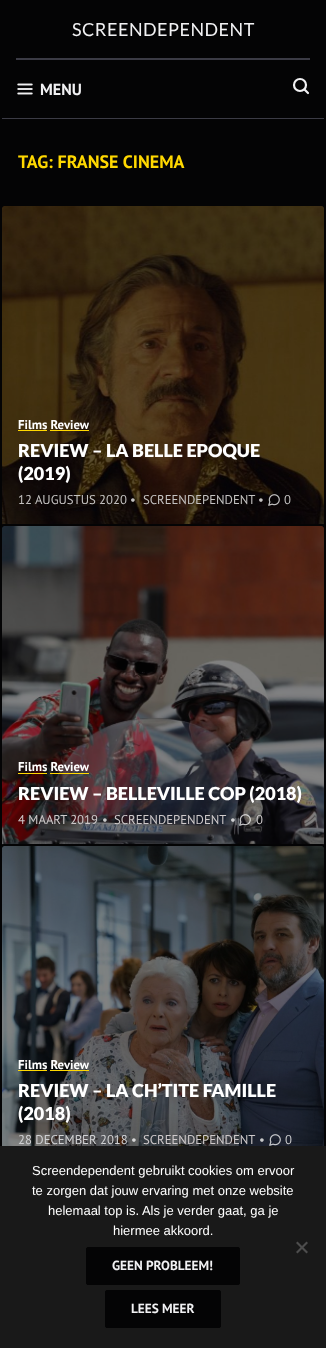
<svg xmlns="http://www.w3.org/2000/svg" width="326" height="1348">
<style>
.a{font:18px Lato;letter-spacing:0.5px;fill:#f1f1f3}
.b{font:bold 16px PT Sans;fill:#f1f1f3}
.c{font:bold 18px PT Sans;fill:#ffd800}
.d{font:bold 12.75px PT Sans;fill:#fff}
.e{font:900 18px Lato;fill:#fff}
.f{font:12.75px PT Sans;fill:#c4c2c1}
.g{font:12.75px PT Sans;fill:#cec9ca}
.h{font:12.75px PT Sans;fill:#c8c9ca}
.i{font:12.75px PT Sans;fill:#d0d1d3}
.j{font:12.75px PT Sans;fill:#d6d6d6}
.k{font:13px Liberation Sans;fill:#fff}
.l{font:bold 13.25px PT Sans;fill:#f1f1f3}
</style>
<rect width="100%" height="100%" fill="#040405"/>
<path fill="#3b3b45" d="M16 58h294v2H16z"/>
<image href="1.png" x="17" y="83" width="16" height="12"/>
<circle fill="none" stroke="#f1f1f3" stroke-width="2.2" cx="300" cy="85" r="6"/>
<path fill="none" stroke="#f1f1f3" stroke-width="2.2" stroke-linecap="round" stroke-linejoin="round" d="M308 93l-3.5-3.5"/>
<path fill="#3b3b45" d="M2 118h322v1H2z"/>
<image href="2.png" x="2" y="206" width="322" height="319"/>
<path fill="#ffd800" d="M18 430h29v1H18z"/>
<path fill="#ffd800" d="M50 430h39v1H50z"/>
<image href="3.png" x="268" y="494" width="12" height="12"/>
<rect fill="none" stroke="#040405" stroke-width="2" x="1" y="525" width="324" height="322" rx="3"/>
<image href="4.png" x="2" y="526" width="322" height="319"/>
<path fill="#ffd800" d="M18 773h29v1H18z"/>
<path fill="#ffd800" d="M50 773h39v1H50z"/>
<image href="5.png" x="239" y="814" width="12" height="12"/>
<rect fill="none" stroke="#040405" stroke-width="2" x="1" y="845" width="324" height="322" rx="3"/>
<image href="6.png" x="2" y="846" width="322" height="300"/>
<path fill="#ffd800" d="M18 1070h29v1H18z"/>
<path fill="#ffd800" d="M50 1070h39v1H50z"/>
<image href="7.png" x="269" y="1134" width="12" height="12"/>
<path fill="#191919" d="M0 1146h326v202H0z"/>
<path fill="#4d4d4d" d="M306.5 1241.5l1.5 1.5l-10.5 10.5l-1.5-1.5z"/>
<path fill="#4d4d4d" d="M296 1243l1.5-1.5l10.5 10.5l-1.5 1.5z"/>
<rect fill="#040405" stroke="#040405" x="86.5" y="1247.5" width="153" height="37" rx="1.5"/>
<rect fill="#040405" stroke="#040405" x="105.5" y="1290.5" width="115" height="37" rx="1.5"/>
<text class="a" x="72" y="36">SCREENDEPENDENT</text>
<text class="b" x="40" y="95">MENU</text>
<text class="c" x="18" y="168">TAG: FRANSE CINEMA</text>
<text class="d" x="18" y="429">Films Review</text>
<text class="e" x="18" y="457">REVIEW – LA BELLE EPOQUE</text>
<text class="e" x="18" y="480">(2019)</text>
<text class="f" x="18" y="504">12 AUGUSTUS 2020</text>
<text class="f" x="130" y="504">•</text>
<text class="f" x="143" y="504">SCREENDEPENDENT</text>
<text class="f" x="258" y="504">•</text>
<text class="f" x="284" y="504">0</text>
<text class="d" x="18" y="771">Films Review</text>
<text class="e" x="18" y="800">REVIEW – BELLEVILLE COP (2018)</text>
<text class="g" x="18" y="824">4 MAART 2019</text>
<text class="h" x="102" y="824">•</text>
<text class="g" x="114" y="824">SCREENDEPENDENT</text>
<text class="i" x="230" y="824">•</text>
<text class="g" x="256" y="824">0</text>
<text class="d" x="18" y="1069">Films Review</text>
<text class="e" x="18" y="1097">REVIEW – LA CH’TITE FAMILLE</text>
<text class="e" x="18" y="1120">(2018)</text>
<text class="i" x="18" y="1144">28 DECEMBER 2018</text>
<text class="j" x="131" y="1144">•</text>
<text class="g" x="143" y="1144">SCREENDEPENDENT</text>
<text class="h" x="259" y="1144">•</text>
<text class="h" x="285" y="1144">0</text>
<text class="k" x="32" y="1175">Screendependent gebruikt cookies om ervoor</text>
<text class="k" x="32" y="1195">te zorgen dat jouw ervaring met onze website</text>
<text class="k" x="48" y="1215">helemaal top is. Als je verder gaat, ga je</text>
<text class="k" x="113" y="1235">hiermee akkoord.</text>
<text class="l" x="112" y="1270">GEEN PROBLEEM!</text>
<text class="l" x="131" y="1313">LEES MEER</text>
</svg>
